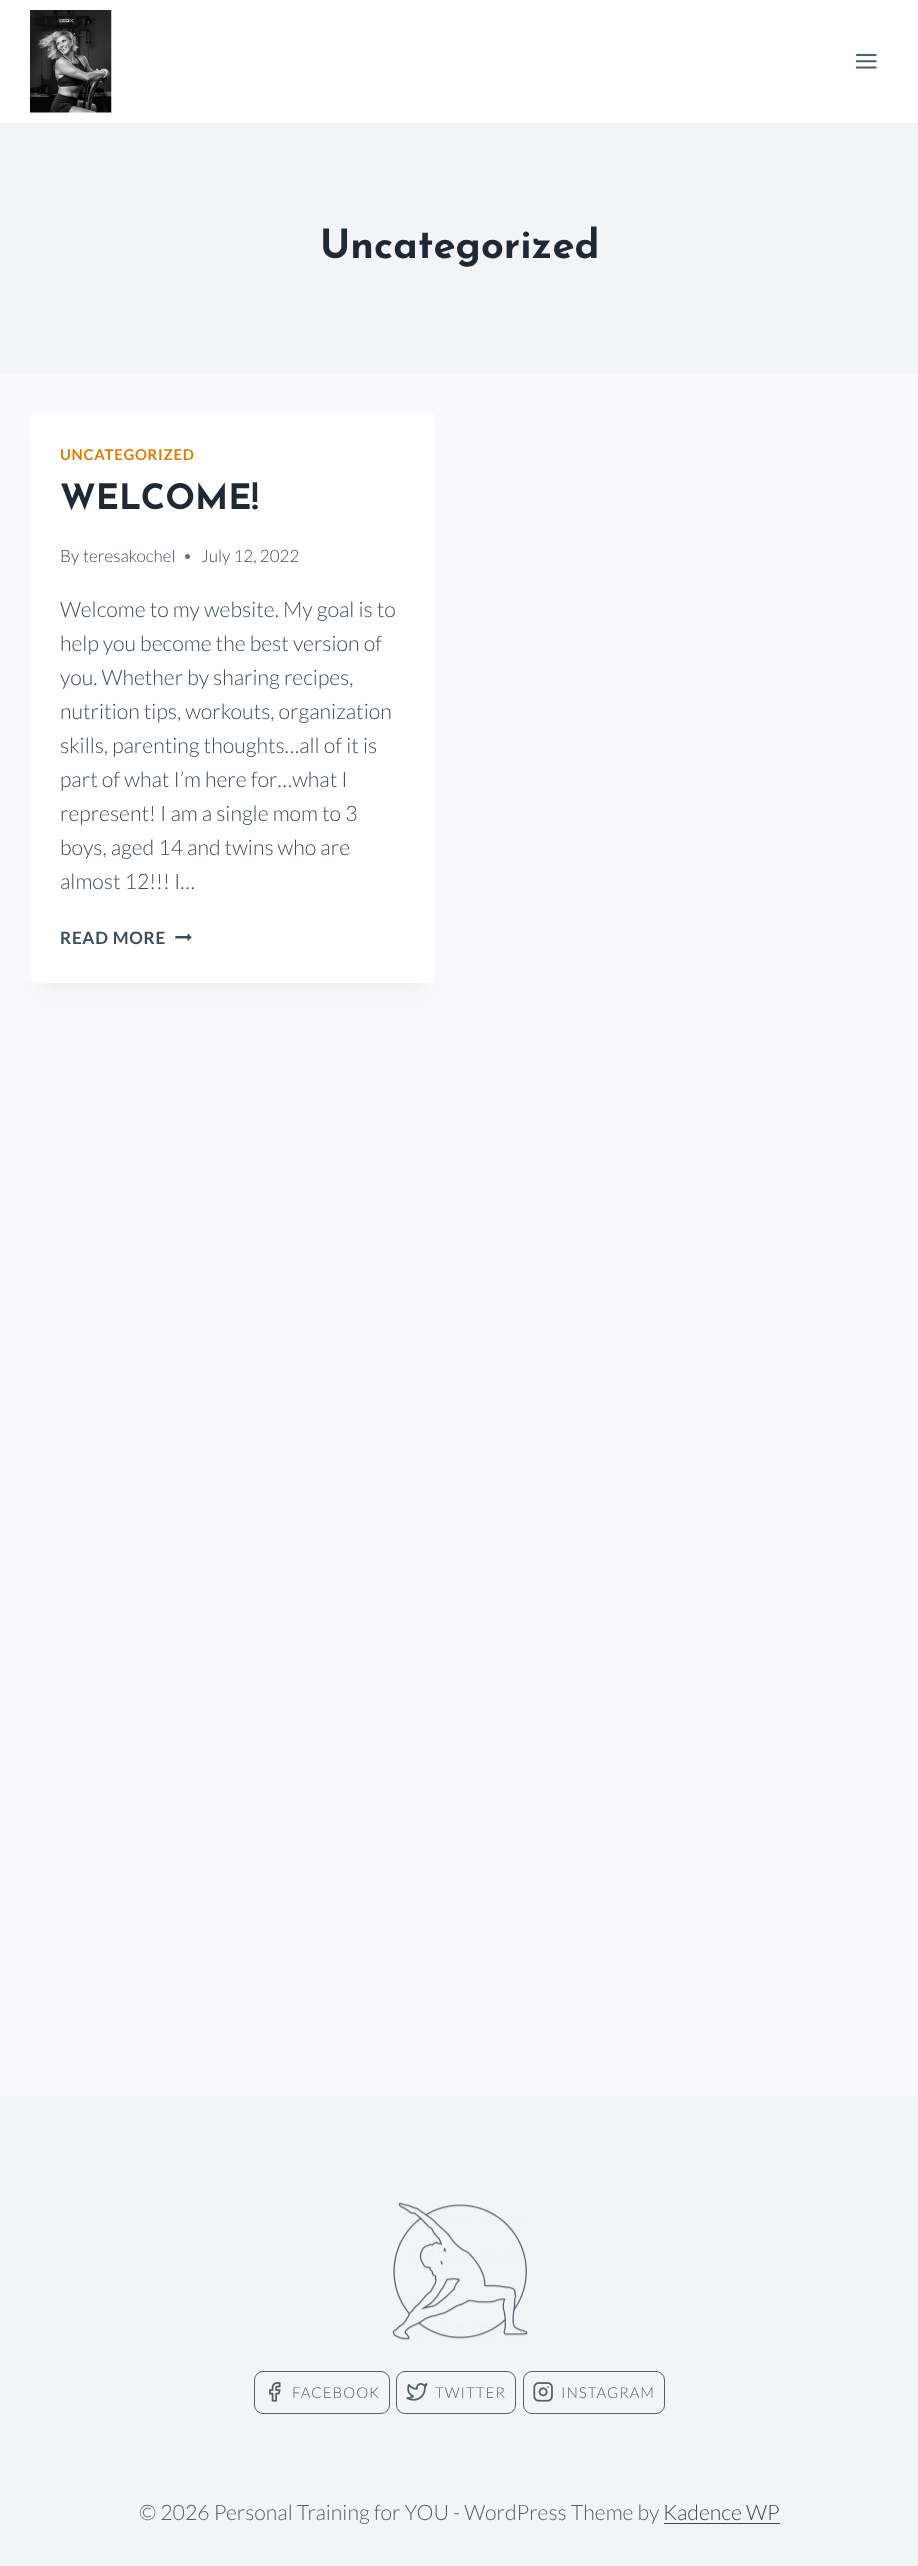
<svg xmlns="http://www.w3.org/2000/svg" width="918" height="2566">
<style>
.a{font:bold 40px Josefin Sans;fill:#1f2933}
.b{font:bold 14.9px Lato;letter-spacing:0.75px;fill:#e47b02}
.c{font:bold 35px Josefin Sans;fill:#1f2933}
.d{font:300 17px Lato;fill:#3e4c59}
.e{font:300 21.25px Lato;fill:#3e4c59}
.f{font:bold 17px Lato;letter-spacing:0.75px;fill:#3e4c59}
.g{font:300 15px Lato;letter-spacing:1px;fill:#52606d}
.h{font:300 21.25px Lato;fill:#52606d}
</style>
<rect width="100%" height="100%" fill="#f9f9fb"/>
<path fill="#fff" d="M0 0h918v123H0z"/>
<image href="1.png" x="30" y="10" width="82" height="103"/>
<image href="2.png" x="855" y="53" width="22" height="16"/>
<path fill="#f3f4f7" d="M0 123h918v250H0z"/>
<path fill="#0000000d" filter="blur(9.5px)" d="M43 444h380v545H43z"/>
<rect fill="#fff" x="30" y="413" width="405" height="570" rx="5"/>
<circle fill="#65707a" cx="187.5" cy="556.5" r="2.5"/>
<image href="3.png" x="175" y="933" width="17" height="8"/>
<path fill="#f3f4f7" d="M0 2096h918v470H0z"/>
<image href="4.png" x="392" y="2202" width="136" height="139"/>
<rect fill="none" stroke="#52606d" x="254.5" y="2371.5" width="135" height="42" rx="8.5"/>
<image href="5.png" x="269" y="2382" width="12" height="20"/>
<rect fill="none" stroke="#52606d" x="396.5" y="2371.5" width="119" height="42" rx="8.5"/>
<image href="6.png" x="406" y="2383" width="22" height="18"/>
<rect fill="none" stroke="#52606d" x="523.5" y="2371.5" width="141" height="42" rx="8.5"/>
<image href="7.png" x="533" y="2382" width="20" height="20"/>
<path fill="#3e4c59" d="M664 2523h116v1H664z"/>
<text class="a" x="320" y="258">Uncategorized</text>
<text class="b" x="60" y="460">UNCATEGORIZED</text>
<text class="c" x="60" y="509">WELCOME!</text>
<text class="d" x="60" y="562">By</text>
<text class="d" x="83" y="562">teresakochel</text>
<text class="d" x="201" y="562">July 12, 2022</text>
<text class="e" x="60" y="617">Welcome to my website. My goal is to</text>
<text class="e" x="60" y="651">help you become the best version of</text>
<text class="e" x="60" y="685">you. Whether by sharing recipes,</text>
<text class="e" x="60" y="719">nutrition tips, workouts, organization</text>
<text class="e" x="60" y="753">skills, parenting thoughts…all of it is</text>
<text class="e" x="60" y="787">part of what I’m here for…what I</text>
<text class="e" x="60" y="821">represent! I am a single mom to 3</text>
<text class="e" x="60" y="855">boys, aged 14 and twins who are</text>
<text class="e" x="60" y="889">almost 12!!! I…</text>
<text class="f" x="60" y="944">READ MORE</text>
<text class="g" x="292" y="2398">FACEBOOK</text>
<text class="g" x="435" y="2398">TWITTER</text>
<text class="g" x="561" y="2398">INSTAGRAM</text>
<text class="h" x="139" y="2520">© 2026 Personal Training for YOU - WordPress Theme by</text>
<text class="e" x="663" y="2520">Kadence WP</text>
</svg>
